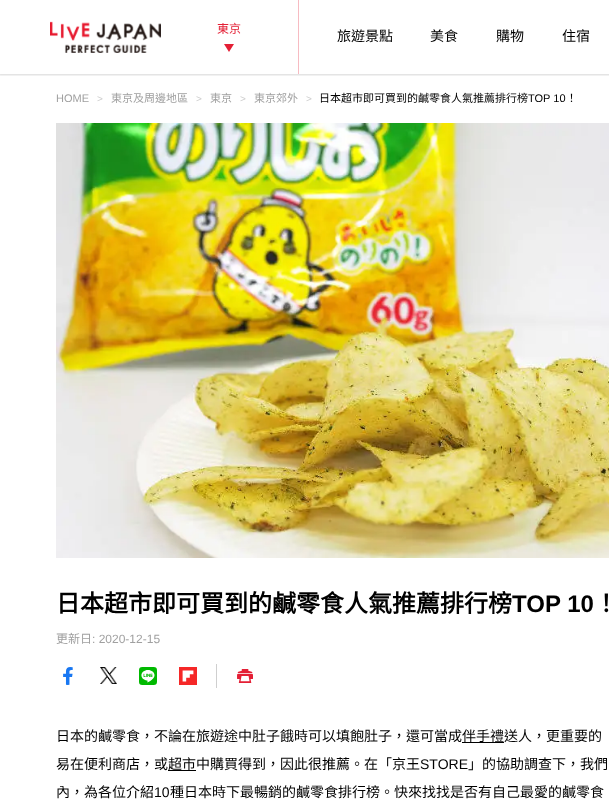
<svg xmlns="http://www.w3.org/2000/svg" width="609" height="810">
<style>
.a{font:12px Noto Sans CJK TC;fill:#e41f35}
.b{font:14px Noto Sans CJK TC;fill:#000}
.c{font:11px Liberation Sans;fill:#a0a0a0}
.d{font:10px Liberation Sans;fill:#ccc}
.e{font:11px Noto Sans CJK TC;fill:#a0a0a0}
.f{font:11px Noto Sans CJK TC;fill:#000}
.g{font:11px Liberation Sans;fill:#000}
.h{font:bold 24px Noto Sans CJK TC;fill:#000}
.i{font:bold 24px Liberation Sans;fill:#000}
.j{font:12px Noto Sans CJK TC;fill:#a0a0a0}
.k{font:12px Liberation Sans;fill:#a0a0a0}
.l{font:14px Liberation Sans;fill:#000}
</style>
<defs>
<clipPath id="clip1"><path d="M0 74h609v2H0z"/></clipPath>
</defs>
<rect width="100%" height="100%" fill="#fff"/>
<g clip-path="url(#clip1)">
<path fill="#32323233" filter="blur(1px)" d="M-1 -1h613v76H-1z"/>
</g>
<image href="1.png" x="50" y="21" width="111" height="32"/>
<path fill="#e41f35" d="M224 44h10l-5 8z"/>
<path fill="#f7bbc2" d="M298 0h1v74H298z"/>
<image href="2.png" x="56" y="123" width="553" height="435"/>
<path fill="#cfcfcf" d="M216 664h1v24H216z"/>
<image href="3.png" x="63" y="667" width="10" height="18"/>
<image href="4.png" x="100" y="667" width="17" height="17"/>
<image href="5.png" x="139" y="667" width="18" height="18"/>
<image href="6.png" x="179" y="667" width="18" height="18"/>
<image href="7.png" x="237" y="669" width="16" height="14"/>
<path fill="#000" d="M462 742h42v1H462z"/>
<path fill="#000" d="M168 770h28v1H168z"/>
<text class="a" x="217" y="33">東京</text>
<text class="b" x="337" y="41">旅遊景點</text>
<text class="b" x="430" y="41">美食</text>
<text class="b" x="496" y="41">購物</text>
<text class="b" x="562" y="41">住宿</text>
<text class="c" x="56" y="102">HOME</text>
<text class="d" x="97" y="102">&gt;</text>
<text class="e" x="111" y="102">東京及周邊地區</text>
<text class="d" x="196" y="102">&gt;</text>
<text class="e" x="210" y="102">東京</text>
<text class="d" x="240" y="102">&gt;</text>
<text class="e" x="254" y="102">東京郊外</text>
<text class="d" x="306" y="102">&gt;</text>
<text class="f" x="319" y="102">日本超市即可買到的鹹零食人氣推薦排行榜</text>
<text class="g" x="528" y="102">TOP 10</text>
<text class="f" x="566" y="102">！</text>
<text class="h" x="56" y="612">日本超市即可買到的鹹零食人氣推薦排行榜</text>
<text class="i" x="512" y="612">TOP 10</text>
<text class="h" x="594" y="612">！</text>
<text class="j" x="56" y="643">更新日</text>
<text class="k" x="92" y="643">: 2020-12-15</text>
<text class="b" x="56" y="741">日本的鹹零食，不論在旅遊途中肚子餓時可以填飽肚子，還可當成</text>
<text class="b" x="462" y="741">伴手禮送人，更重要的</text>
<text class="b" x="56" y="769">易在便利商店，或</text>
<text class="b" x="168" y="769">超市中購買得到，因此很推薦。在「京王</text>
<text class="l" x="420" y="769">STORE</text>
<text class="b" x="468" y="769">」的協助調查下，我們</text>
<text class="b" x="56" y="797">內，為各位介紹</text>
<text class="l" x="154" y="797">10</text>
<text class="b" x="170" y="797">種日本時下最暢銷的鹹零食排行榜。快來找找是否有自己最愛的鹹零食</text>
</svg>
